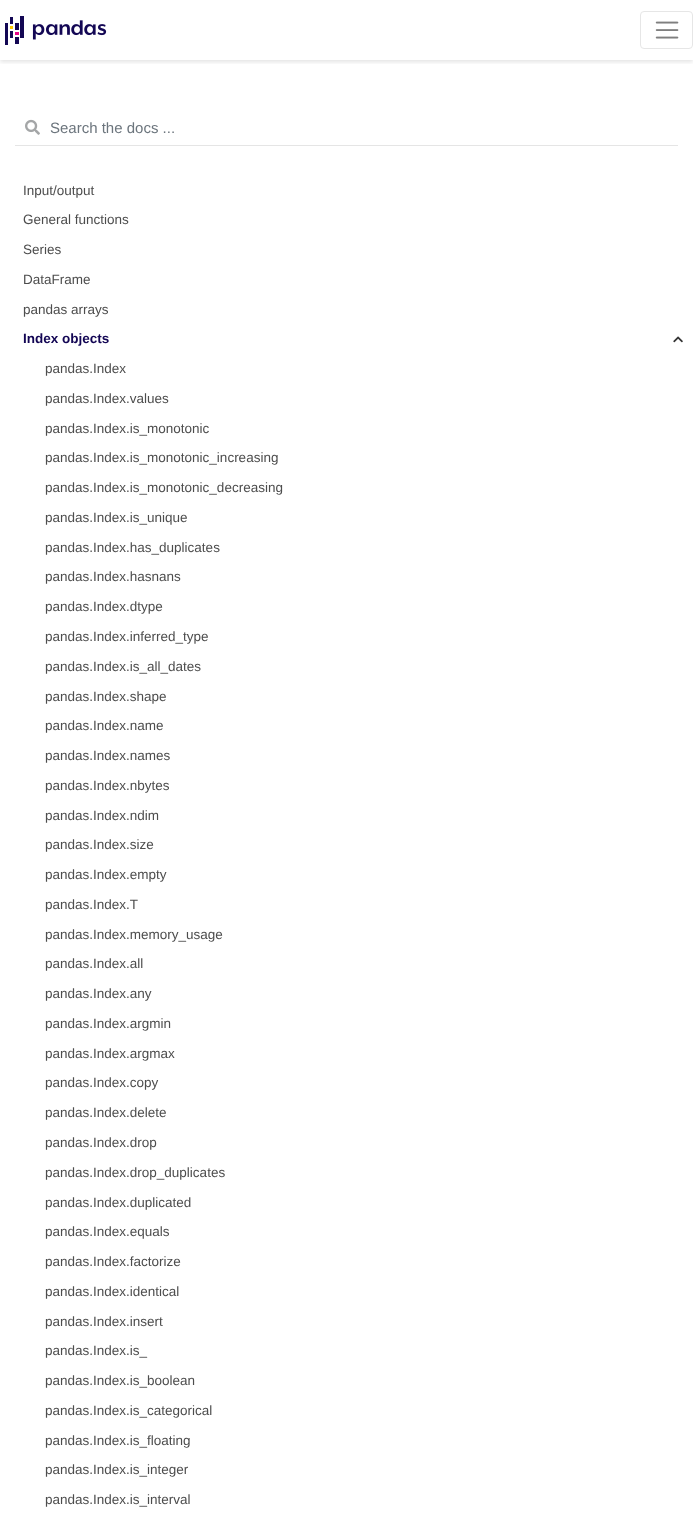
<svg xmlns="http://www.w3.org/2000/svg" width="693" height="1527">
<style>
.a{font:15px Liberation Sans;fill:#6c757d}
.b{font:13.5px Liberation Sans;fill:#4d4d4d}
.c{font:bold 13.5px Liberation Sans;fill:#130654}
</style>
<defs>
<clipPath id="clip1"><path d="M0 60h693v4H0z"/></clipPath>
</defs>
<rect width="100%" height="100%" fill="#fff"/>
<g clip-path="url(#clip1)">
<path fill="#0000001c" filter="blur(2px)" d="M0 2h693v60H0z"/>
</g>
<image href="1.png" x="5" y="16" width="102" height="29"/>
<rect fill="none" stroke="#e6e6e6" x="640.5" y="11.5" width="52" height="37" rx="3.5"/>
<image href="2.png" x="655" y="21" width="24" height="18"/>
<image href="3.png" x="25" y="119" width="15" height="16"/>
<path fill="#e5e5e5" d="M15 145h663v1H15z"/>
<image href="4.png" x="673" y="336" width="10" height="7"/>
<text class="a" x="50" y="133">Search the docs ...</text>
<text class="b" x="23" y="195">Input/output</text>
<text class="b" x="23" y="224">General functions</text>
<text class="b" x="23" y="254">Series</text>
<text class="b" x="23" y="284">DataFrame</text>
<text class="b" x="23" y="314">pandas arrays</text>
<text class="c" x="23" y="343">Index objects</text>
<text class="b" x="45" y="373">pandas.Index</text>
<text class="b" x="45" y="403">pandas.Index.values</text>
<text class="b" x="45" y="433">pandas.Index.is_monotonic</text>
<text class="b" x="45" y="462">pandas.Index.is_monotonic_increasing</text>
<text class="b" x="45" y="492">pandas.Index.is_monotonic_decreasing</text>
<text class="b" x="45" y="522">pandas.Index.is_unique</text>
<text class="b" x="45" y="552">pandas.Index.has_duplicates</text>
<text class="b" x="45" y="581">pandas.Index.hasnans</text>
<text class="b" x="45" y="611">pandas.Index.dtype</text>
<text class="b" x="45" y="641">pandas.Index.inferred_type</text>
<text class="b" x="45" y="671">pandas.Index.is_all_dates</text>
<text class="b" x="45" y="701">pandas.Index.shape</text>
<text class="b" x="45" y="730">pandas.Index.name</text>
<text class="b" x="45" y="760">pandas.Index.names</text>
<text class="b" x="45" y="790">pandas.Index.nbytes</text>
<text class="b" x="45" y="820">pandas.Index.ndim</text>
<text class="b" x="45" y="849">pandas.Index.size</text>
<text class="b" x="45" y="879">pandas.Index.empty</text>
<text class="b" x="45" y="909">pandas.Index.T</text>
<text class="b" x="45" y="939">pandas.Index.memory_usage</text>
<text class="b" x="45" y="968">pandas.Index.all</text>
<text class="b" x="45" y="998">pandas.Index.any</text>
<text class="b" x="45" y="1028">pandas.Index.argmin</text>
<text class="b" x="45" y="1058">pandas.Index.argmax</text>
<text class="b" x="45" y="1087">pandas.Index.copy</text>
<text class="b" x="45" y="1117">pandas.Index.delete</text>
<text class="b" x="45" y="1147">pandas.Index.drop</text>
<text class="b" x="45" y="1177">pandas.Index.drop_duplicates</text>
<text class="b" x="45" y="1207">pandas.Index.duplicated</text>
<text class="b" x="45" y="1236">pandas.Index.equals</text>
<text class="b" x="45" y="1266">pandas.Index.factorize</text>
<text class="b" x="45" y="1296">pandas.Index.identical</text>
<text class="b" x="45" y="1326">pandas.Index.insert</text>
<text class="b" x="45" y="1355">pandas.Index.is_</text>
<text class="b" x="45" y="1385">pandas.Index.is_boolean</text>
<text class="b" x="45" y="1415">pandas.Index.is_categorical</text>
<text class="b" x="45" y="1445">pandas.Index.is_floating</text>
<text class="b" x="45" y="1474">pandas.Index.is_integer</text>
<text class="b" x="45" y="1504">pandas.Index.is_interval</text>
</svg>
